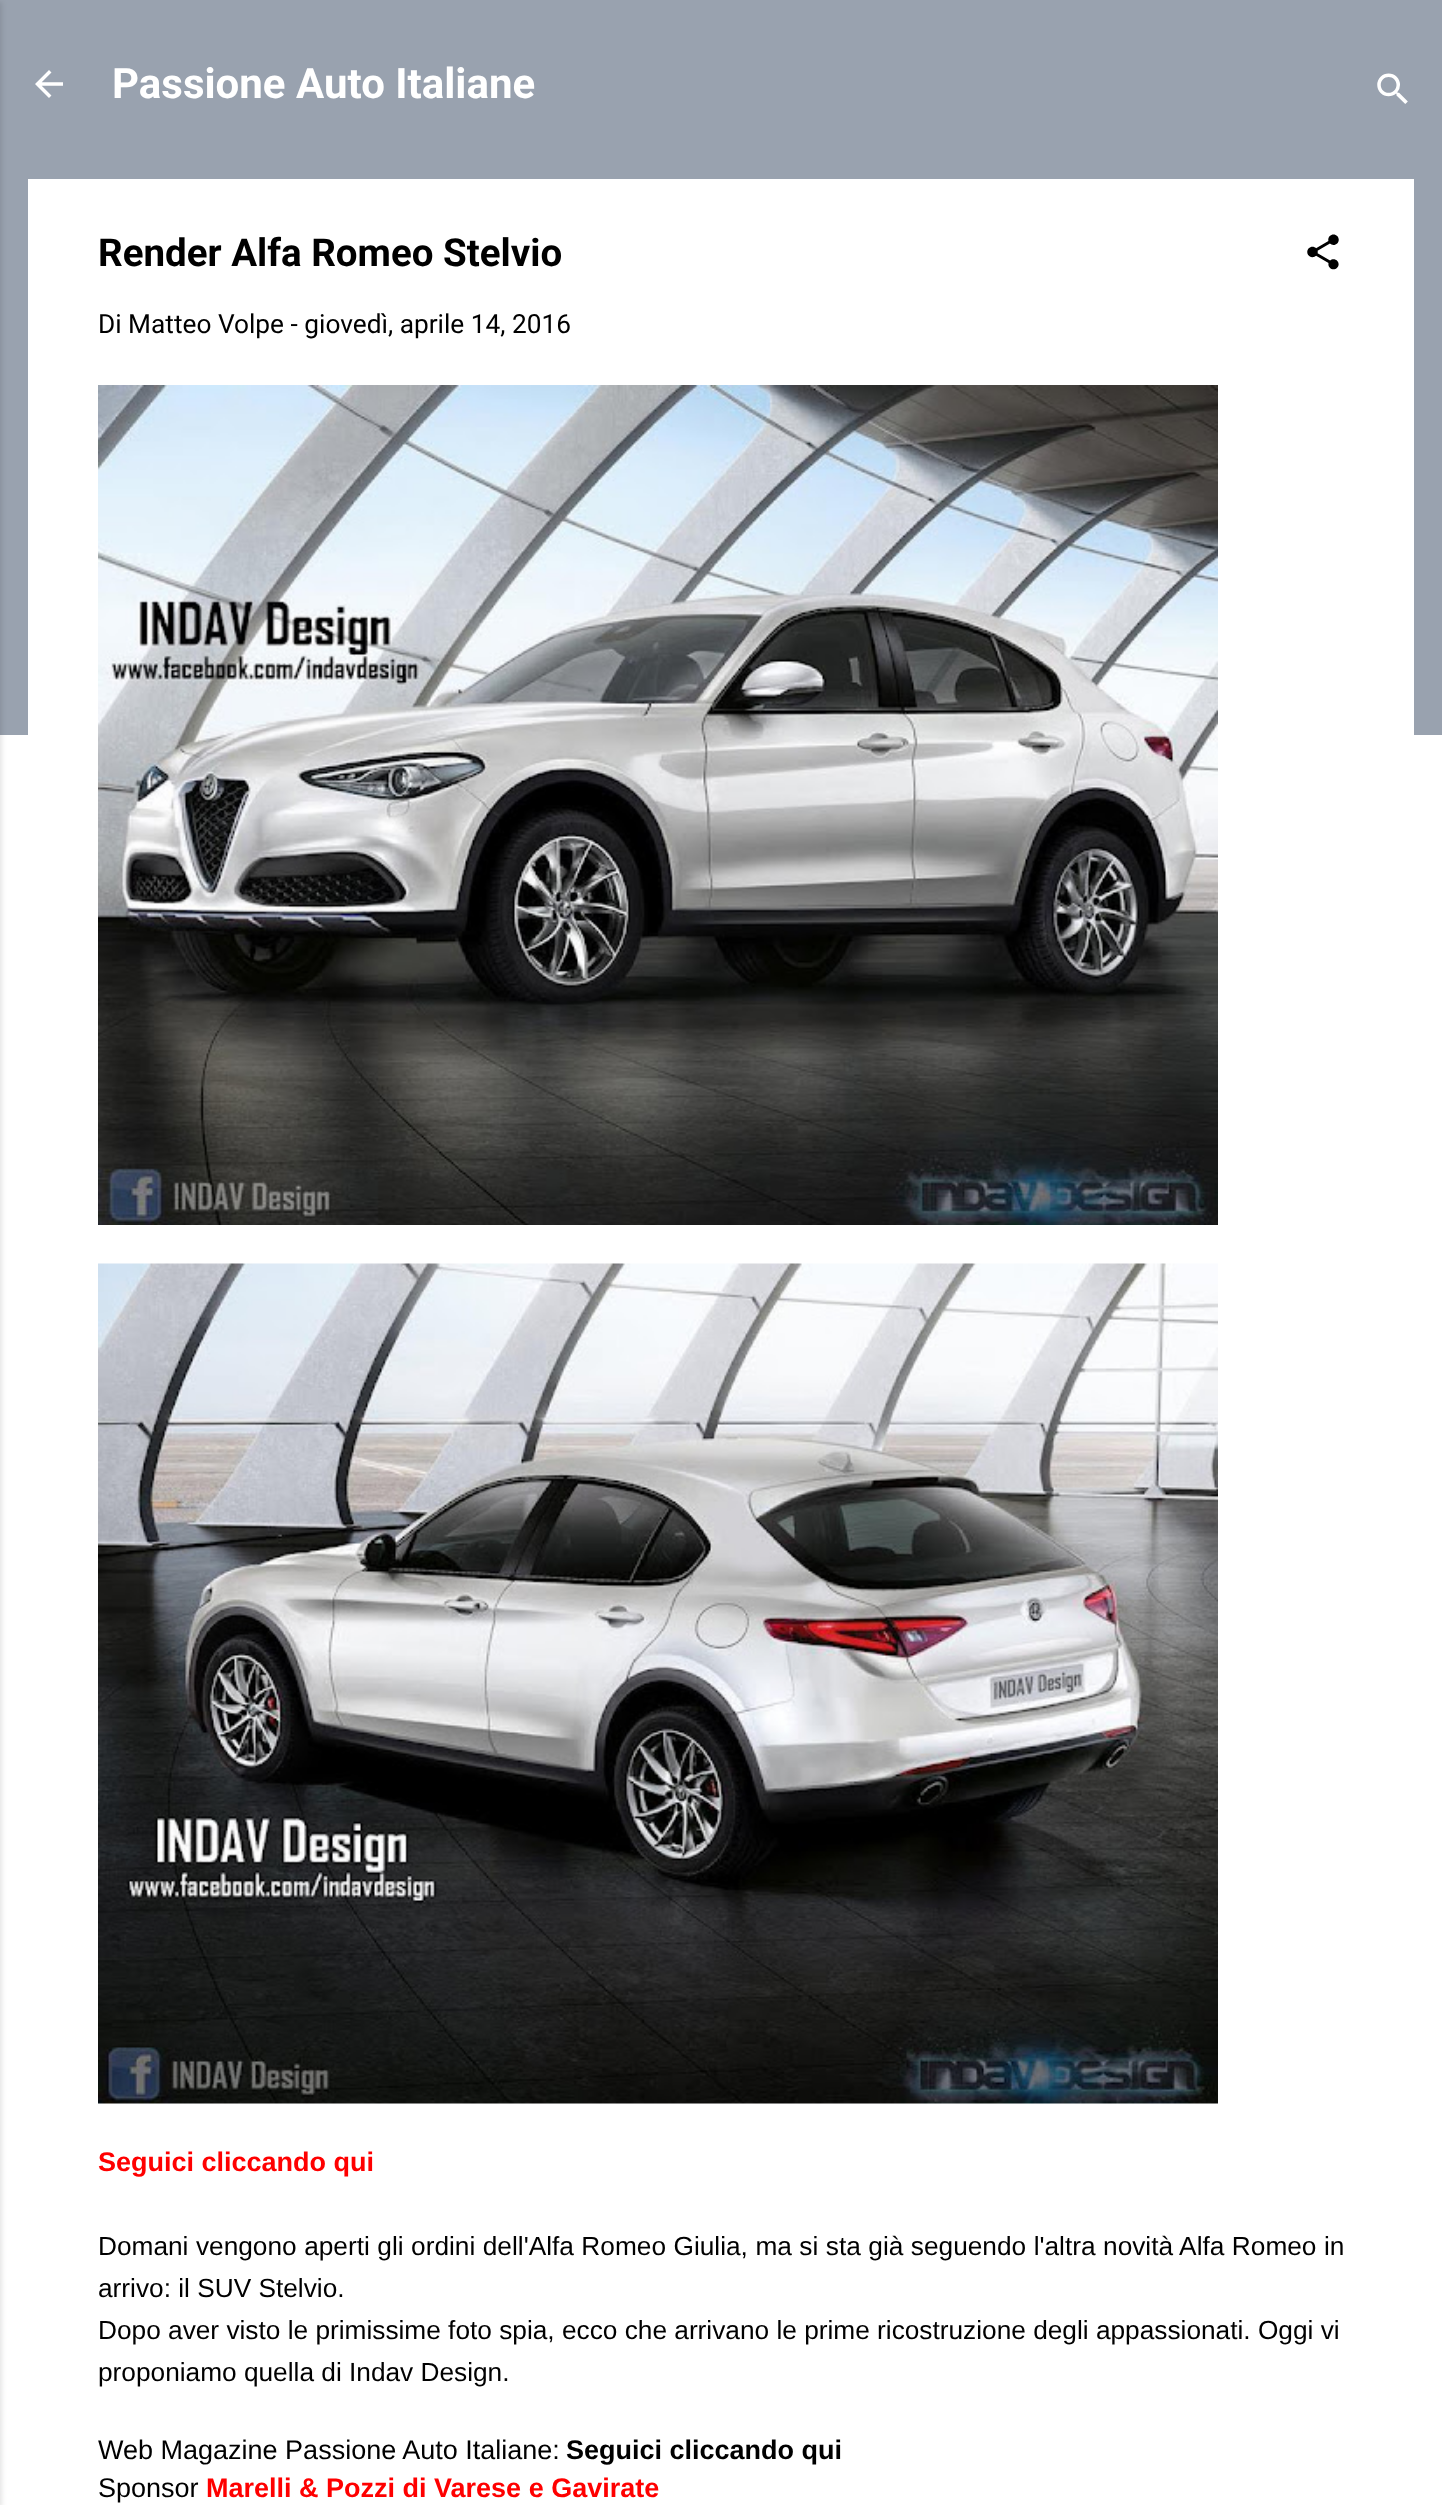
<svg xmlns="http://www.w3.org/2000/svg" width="1442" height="2505">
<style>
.a{font:bold 42px Roboto;fill:#fff}
.b{font:bold 38.5px Roboto;fill:#000}
.c{font:26.25px Roboto;fill:#000}
.d{font:bold 27px Liberation Sans;fill:#f00}
.e{font:26.25px Liberation Sans;fill:#000}
.f{font:27px Liberation Sans;fill:#000}
.g{font:bold 27px Liberation Sans;fill:#000}
</style>
<rect width="100%" height="100%" fill="#fff"/>
<path fill="#99a2af" d="M0 0h1442v735H0z"/>
<path fill="#0000001a" filter="blur(2.5px)" d="M-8 2h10v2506H-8z"/>
<image href="1.png" x="35" y="70" width="28" height="28"/>
<image href="2.png" x="1377" y="73" width="31" height="31"/>
<path fill="#fff" d="M28 179h1386v556H28z"/>
<image href="3.png" x="1307" y="234" width="32" height="36"/>
<image href="4.png" x="98" y="385" width="1120" height="840"/>
<image href="5.png" x="98" y="1263" width="1120" height="841"/>
<text class="a" x="112" y="98">Passione Auto Italiane</text>
<text class="b" x="98" y="266">Render Alfa Romeo Stelvio</text>
<text class="c" x="98" y="333">Di Matteo Volpe - giovedì, aprile 14, 2016</text>
<text class="d" x="98" y="2171">Seguici cliccando qui</text>
<text class="e" x="98" y="2255" word-spacing="0.2">Domani vengono aperti gli ordini dell'Alfa Romeo Giulia, ma si sta già seguendo l'altra novità Alfa Romeo in</text>
<text class="e" x="98" y="2297">arrivo: il SUV Stelvio.</text>
<text class="e" x="98" y="2339">Dopo aver visto le primissime foto spia, ecco che arrivano le prime ricostruzione degli appassionati. Oggi vi</text>
<text class="e" x="98" y="2381">proponiamo quella di Indav Design.</text>
<text class="f" x="98" y="2459">Web Magazine Passione Auto Italiane:</text>
<text class="g" x="566" y="2459">Seguici cliccando qui</text>
<text class="f" x="98" y="2497">Sponsor</text>
<text class="d" x="206" y="2497">Marelli &amp; Pozzi di Varese e Gavirate</text>
</svg>
